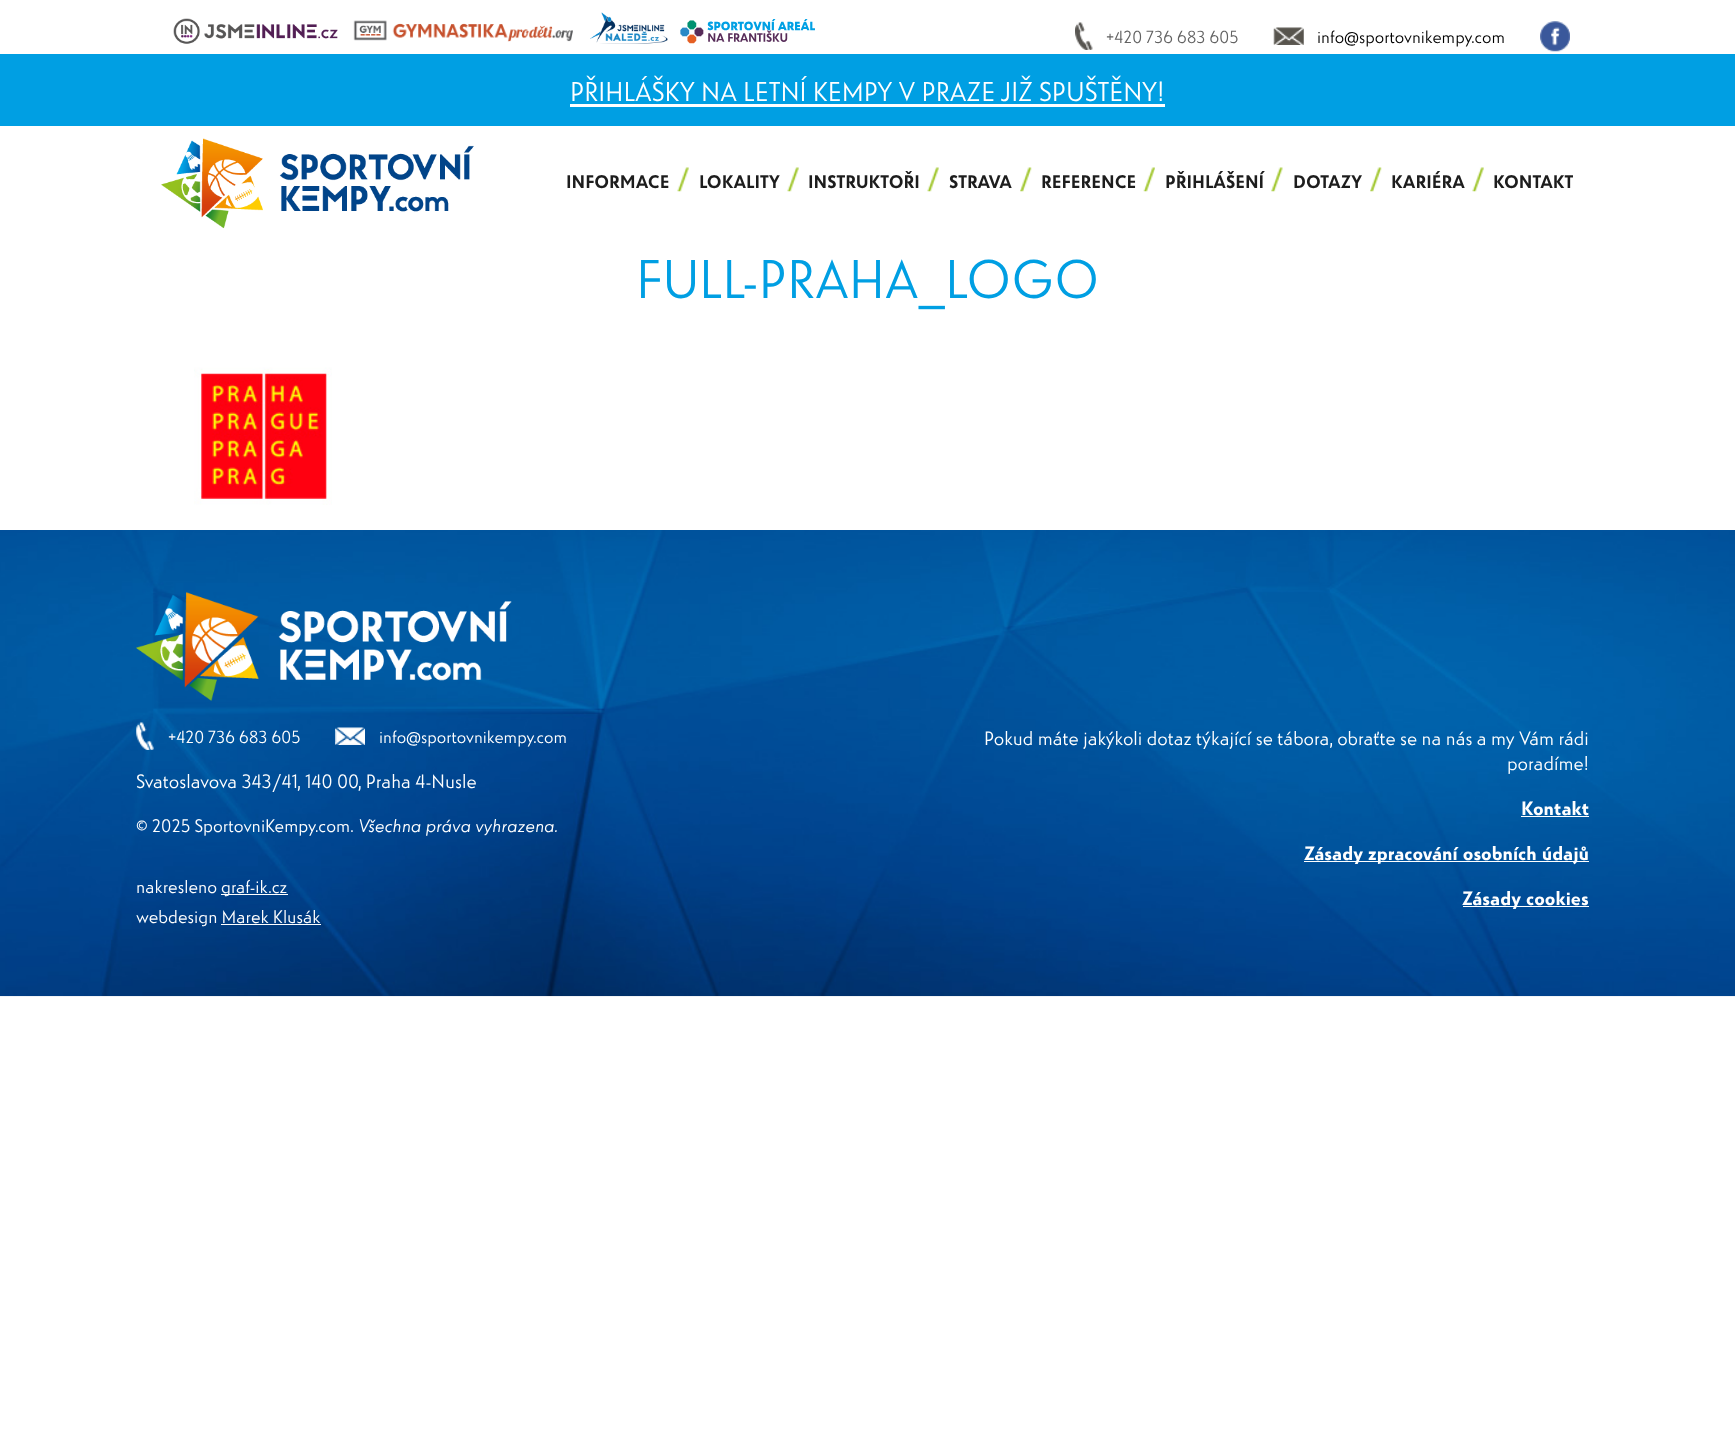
<svg xmlns="http://www.w3.org/2000/svg" width="1735" height="1450">
<style>
.a{font:18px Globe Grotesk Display;fill:#626262}
.b{font:18px Globe Grotesk Display;fill:#000}
.c{font:28px Globe Grotesk Display;fill:#fff}
.d{font:bold 18.75px Globe Grotesk Display;fill:#1d1d1d}
.e{font:56px Globe Grotesk Display;fill:#009fe3}
.f{font:18px Globe Grotesk Display;fill:#fff}
.g{font:20px Globe Grotesk Display;fill:#fff}
.h{font:18.75px Globe Grotesk Display;fill:#fff}
.i{font:italic 18.75px Globe Grotesk Display;fill:#fff}
.j{font:bold 20px Globe Grotesk Display;fill:#fff}
</style>
<rect width="100%" height="100%" fill="#fff"/>
<image href="1.png" x="173" y="18" width="165" height="26"/>
<image href="2.png" x="353" y="20" width="220" height="22"/>
<image href="3.png" x="590" y="12" width="78" height="32"/>
<image href="4.png" x="680" y="19" width="135" height="25"/>
<image href="5.png" x="1075" y="22" width="18" height="28"/>
<image href="6.png" x="1273" y="27" width="31" height="18"/>
<image href="7.png" x="1540" y="21" width="30" height="31"/>
<path fill="#009fe3" d="M0 54h1735v72H0z"/>
<path fill="#fff" d="M570 104h595v3H570z"/>
<image href="8.png" x="161" y="138" width="313" height="91"/>
<image href="9.png" x="677" y="167" width="12" height="25"/>
<image href="9.png" x="787" y="167" width="12" height="25"/>
<image href="10.png" x="927" y="167" width="12" height="25"/>
<image href="11.png" x="1020" y="167" width="12" height="25"/>
<image href="12.png" x="1143" y="167" width="12" height="25"/>
<image href="13.png" x="1271" y="167" width="12" height="25"/>
<image href="11.png" x="1370" y="167" width="12" height="25"/>
<image href="9.png" x="1472" y="167" width="12" height="25"/>
<image href="14.png" x="194" y="367" width="138" height="138"/>
<image href="15.png" x="0" y="530" width="1735" height="467"/>
<image href="16.png" x="136" y="592" width="376" height="109"/>
<image href="17.png" x="136" y="722" width="18" height="28"/>
<image href="18.png" x="335" y="727" width="30" height="18"/>
<path fill="#fff" d="M221 894h67v1H221z"/>
<path fill="#fff" d="M221 924h100v1H221z"/>
<path fill="#fff" d="M1521 816h68v1H1521z"/>
<path fill="#fff" d="M1304 861h285v1H1304z"/>
<path fill="#fff" d="M1463 906h126v1H1463z"/>
<text class="a" x="1106" y="43">+420 736 683 605</text>
<text class="b" x="1317" y="43">info@sportovnikempy.com</text>
<text class="c" x="570" y="101">PŘIHLÁŠKY NA LETNÍ KEMPY V PRAZE JIŽ SPUŠTĚNY!</text>
<text class="d" x="566" y="188">INFORMACE</text>
<text class="d" x="699" y="188">LOKALITY</text>
<text class="d" x="808" y="188">INSTRUKTOŘI</text>
<text class="d" x="949" y="188">STRAVA</text>
<text class="d" x="1041" y="188">REFERENCE</text>
<text class="d" x="1165" y="188">PŘIHLÁŠENÍ</text>
<text class="d" x="1293" y="188">DOTAZY</text>
<text class="d" x="1391" y="188">KARIÉRA</text>
<text class="d" x="1493" y="188">KONTAKT</text>
<text class="e" x="636" y="298">FULL-PRAHA_LOGO</text>
<text class="f" x="168" y="743">+420 736 683 605</text>
<text class="f" x="379" y="743">info@sportovnikempy.com</text>
<text class="g" x="136" y="788">Svatoslavova 343/41, 140 00, Praha 4-Nusle</text>
<text class="h" x="136" y="832">© 2025 SportovniKempy.com.</text>
<text class="i" x="358" y="832">Všechna práva vyhrazena.</text>
<text class="h" x="136" y="893">nakresleno</text>
<text class="h" x="221" y="893">graf-ik.cz</text>
<text class="h" x="136" y="923">webdesign Marek Klusák</text>
<text class="g" x="984" y="745">Pokud máte jakýkoli dotaz týkající se tábora, obraťte se na nás a my Vám rádi</text>
<text class="g" x="1507" y="770">poradíme!</text>
<text class="j" x="1521" y="815">Kontakt</text>
<text class="j" x="1304" y="860">Zásady zpracování osobních údajů</text>
<text class="j" x="1462" y="905">Zásady cookies</text>
</svg>
